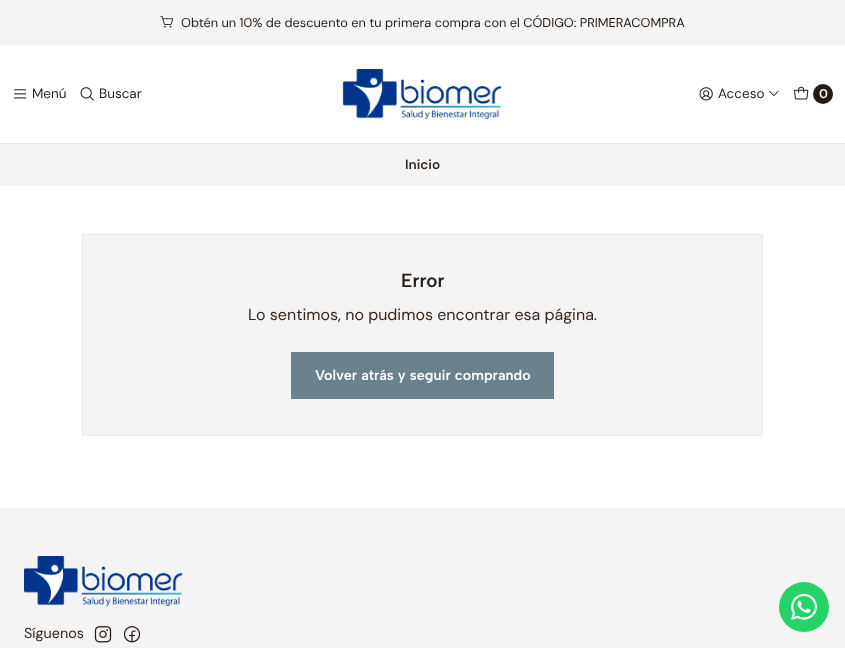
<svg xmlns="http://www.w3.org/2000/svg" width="845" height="648">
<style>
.a{font:12.8px DM Sans;fill:#261c15}
.b{font:13.5px DM Sans;fill:#261c15}
.c{font:600 12.8px DM Sans;fill:#f5f5f5}
.d{font:600 13.5px DM Sans;fill:#35271d}
.e{font:600 19px Albert Sans;fill:#261c15}
.f{font:16px DM Sans;fill:#35271d}
.g{font:600 14.4px Albert Sans;fill:#fff}
.h{font:14.4px DM Sans;fill:#35271d}
</style>
<rect width="100%" height="100%" fill="#fff"/>
<path fill="#f4f4f4" d="M0 0h845v45H0z"/>
<image href="1.png" x="160" y="16" width="14" height="12"/>
<path fill="#e9e8e8" d="M0 143h845v1H0z"/>
<image href="2.png" x="14" y="89" width="13" height="10"/>
<image href="3.png" x="80" y="87" width="14" height="14"/>
<image href="4.png" x="342" y="69" width="160" height="50"/>
<image href="5.png" x="699" y="87" width="14" height="14"/>
<image href="6.png" x="769" y="91" width="10" height="5"/>
<image href="7.png" x="794" y="86" width="15" height="14"/>
<circle fill="#261c15" cx="823" cy="94" r="10"/>
<path fill="#f4f4f4" d="M0 144h845v42H0z"/>
<path fill="#f5f4f4" stroke="#ebe9e9" d="M82.5 234.5h680v201H82.5z"/>
<path fill="#6b818c" d="M291 352h263v47H291z"/>
<path fill="#f4f4f4" d="M0 508h845v140H0z"/>
<image href="8.png" x="24" y="556" width="159" height="50"/>
<image href="9.png" x="94" y="626" width="18" height="17"/>
<image href="10.png" x="123" y="626" width="18" height="17"/>
<circle fill="#25d366" cx="804" cy="607" r="25"/>
<image href="11.png" x="791" y="593" width="26" height="27"/>
<text class="a" x="181" y="27">Obtén un 10% de descuento en tu primera compra con el CÓDIGO: PRIMERACOMPRA</text>
<text class="b" x="32" y="98">Menú</text>
<text class="b" x="99" y="98">Buscar</text>
<text class="b" x="718" y="98">Acceso</text>
<text class="c" x="819" y="98">0</text>
<text class="d" x="405" y="169">Inicio</text>
<text class="e" x="401" y="287">Error</text>
<text class="f" x="248" y="320">Lo sentimos, no pudimos encontrar esa página.</text>
<text class="g" x="315" y="380">Volver atrás y seguir comprando</text>
<text class="h" x="24" y="638">Síguenos</text>
</svg>
